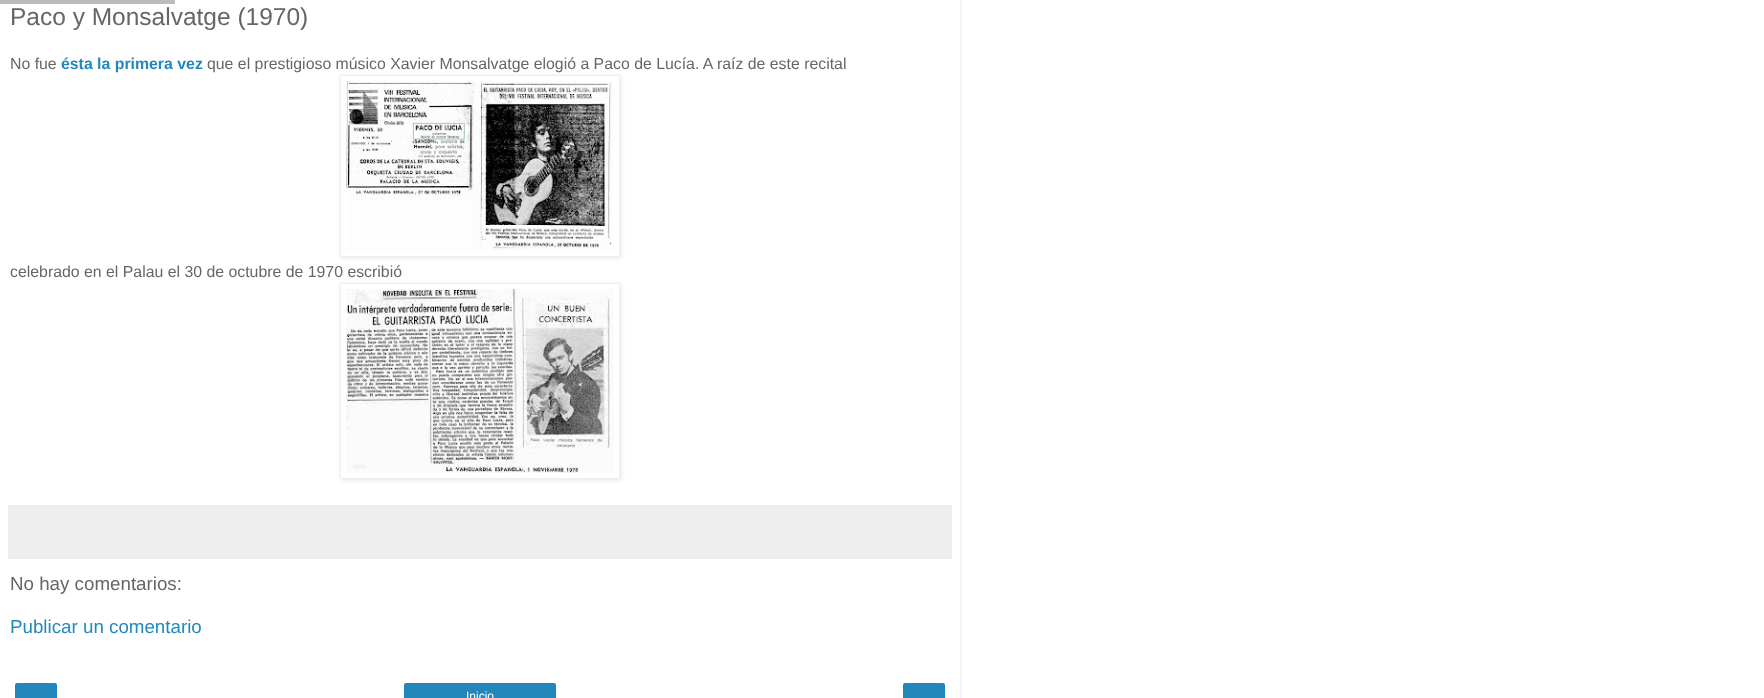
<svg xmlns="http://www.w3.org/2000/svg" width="1764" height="698">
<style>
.a{font:24.5px Liberation Sans;fill:#666}
.b{font:15.85px Liberation Sans;fill:#666}
.c{font:bold 15.85px Liberation Sans;fill:#28b}
.d{font:18.75px Liberation Sans;fill:#666}
.e{font:18.75px Liberation Sans;fill:#28b}
.f{font:12px Liberation Sans;fill:#fff}
</style>
<defs>
<clipPath id="clip1"><path d="M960 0h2v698H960z"/></clipPath>
<clipPath id="clip2"><path d="M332 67h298v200h-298zm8 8h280v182h-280z" clip-rule="evenodd"/></clipPath>
<clipPath id="clip3"><path d="M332 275h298v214h-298zm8 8h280v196h-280z" clip-rule="evenodd"/></clipPath>
</defs>
<rect width="100%" height="100%" fill="#fff"/>
<g clip-path="url(#clip1)">
<path fill="#00000026" filter="blur(1.5px)" d="M0 -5h960v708H0z"/>
</g>
<path fill="#bbb" d="M0 0h175v4H0z"/>
<g clip-path="url(#clip2)">
<path fill="#0000001a" filter="blur(2.5px)" d="M341 76h280v182H341z"/>
</g>
<path fill="none" stroke="#eee" d="M340.5 75.5h279v181H340.5z"/>
<image href="1.png" x="346" y="81" width="268" height="170"/>
<g clip-path="url(#clip3)">
<path fill="#0000001a" filter="blur(2.5px)" d="M341 284h280v196H341z"/>
</g>
<path fill="none" stroke="#eee" d="M340.5 283.5h279v195H340.5z"/>
<image href="2.png" x="346" y="289" width="268" height="184"/>
<path fill="#eee" d="M8 505h944v54H8z"/>
<rect fill="#28b" x="15" y="683" width="42" height="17" rx="2"/>
<rect fill="#28b" x="404" y="683" width="152" height="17" rx="2"/>
<rect fill="#28b" x="903" y="683" width="42" height="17" rx="2"/>
<text class="a" x="10" y="25">Paco y Monsalvatge (1970)</text>
<text class="b" x="10" y="69">No fue</text>
<text class="c" x="61" y="69">ésta la primera vez</text>
<text class="b" x="207" y="69">que el prestigioso músico Xavier Monsalvatge elogió a Paco de Lucía. A raíz de este recital</text>
<text class="b" x="10" y="277">celebrado en el Palau el 30 de octubre de 1970 escribió</text>
<text class="d" x="10" y="590">No hay comentarios:</text>
<text class="e" x="10" y="633">Publicar un comentario</text>
<text class="f" x="466" y="700">Inicio</text>
</svg>
